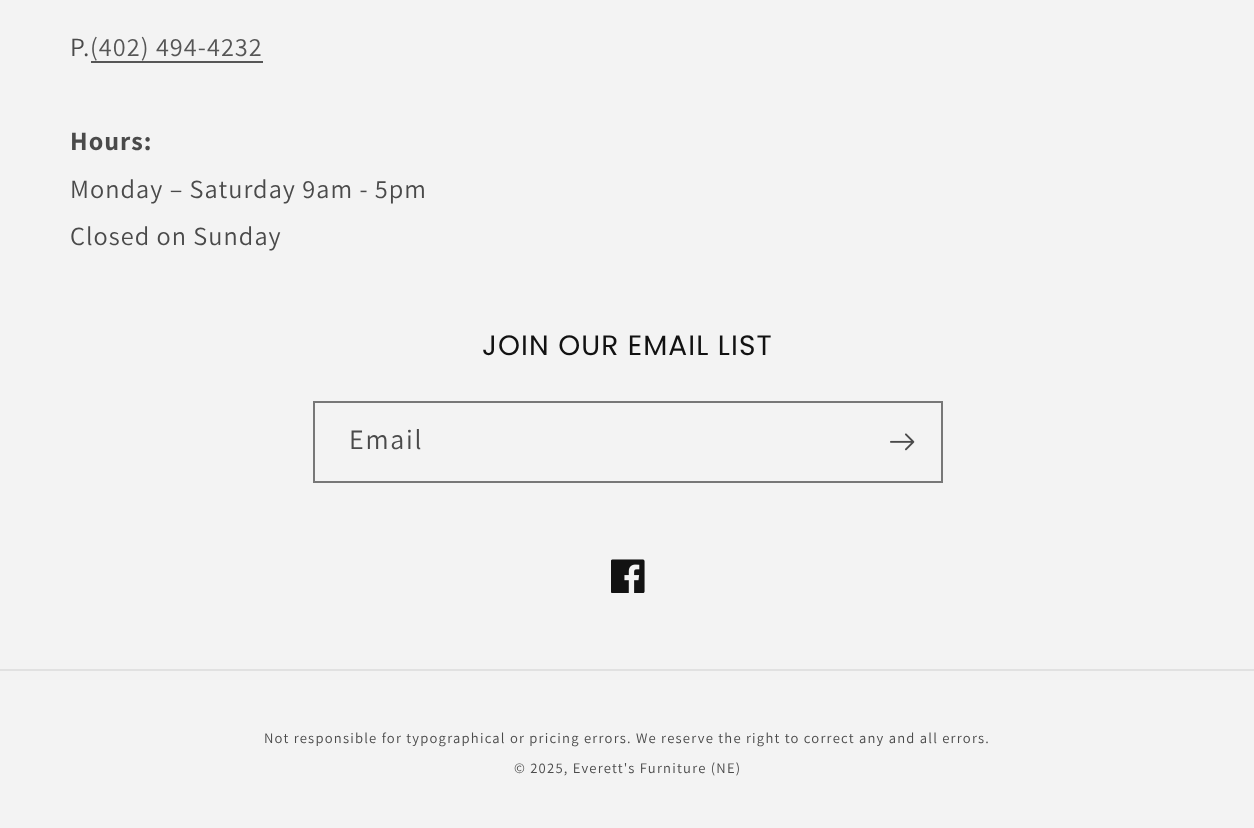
<svg xmlns="http://www.w3.org/2000/svg" width="1254" height="828">
<style>
.a{font:26.25px Assistant;letter-spacing:1.05px;fill:#4a4a4a}
.b{font:26.25px Assistant;letter-spacing:1.05px;fill:#565656}
.c{font:bold 26.25px Assistant;letter-spacing:1.05px;fill:#4a4a4a}
.d{font:28px Poppins;letter-spacing:1.05px;fill:#121212}
.e{font:28px Assistant;letter-spacing:1.75px;fill:#4a4a4a}
.f{font:14.6px Assistant;letter-spacing:1.22px;fill:#4a4a4a}
</style>
<rect width="100%" height="100%" fill="#f3f3f3"/>
<path fill="#565656" d="M91 61h172v2H91z"/>
<path fill="none" stroke="#777" stroke-width="2" d="M314 402h628v80H314z"/>
<image href="1.png" x="890" y="433" width="25" height="18"/>
<image href="2.png" x="611" y="559" width="34" height="34"/>
<path fill="#e1e1e1" d="M0 669h1254v2H0z"/>
<text class="a" x="70" y="56">P.</text>
<text class="b" x="90" y="56">(402) 494-4232</text>
<text class="c" x="70" y="150">Hours:</text>
<text class="a" x="70" y="198">Monday – Saturday 9am - 5pm</text>
<text class="a" x="70" y="245">Closed on Sunday</text>
<text class="d" x="482" y="355">JOIN OUR EMAIL LIST</text>
<text class="e" x="349" y="449">Email</text>
<text class="f" x="264" y="743">Not responsible for typographical or pricing errors. We reserve the right to correct any and all errors.</text>
<text class="f" x="514" y="773">© 2025, Everett's Furniture (NE)</text>
</svg>
